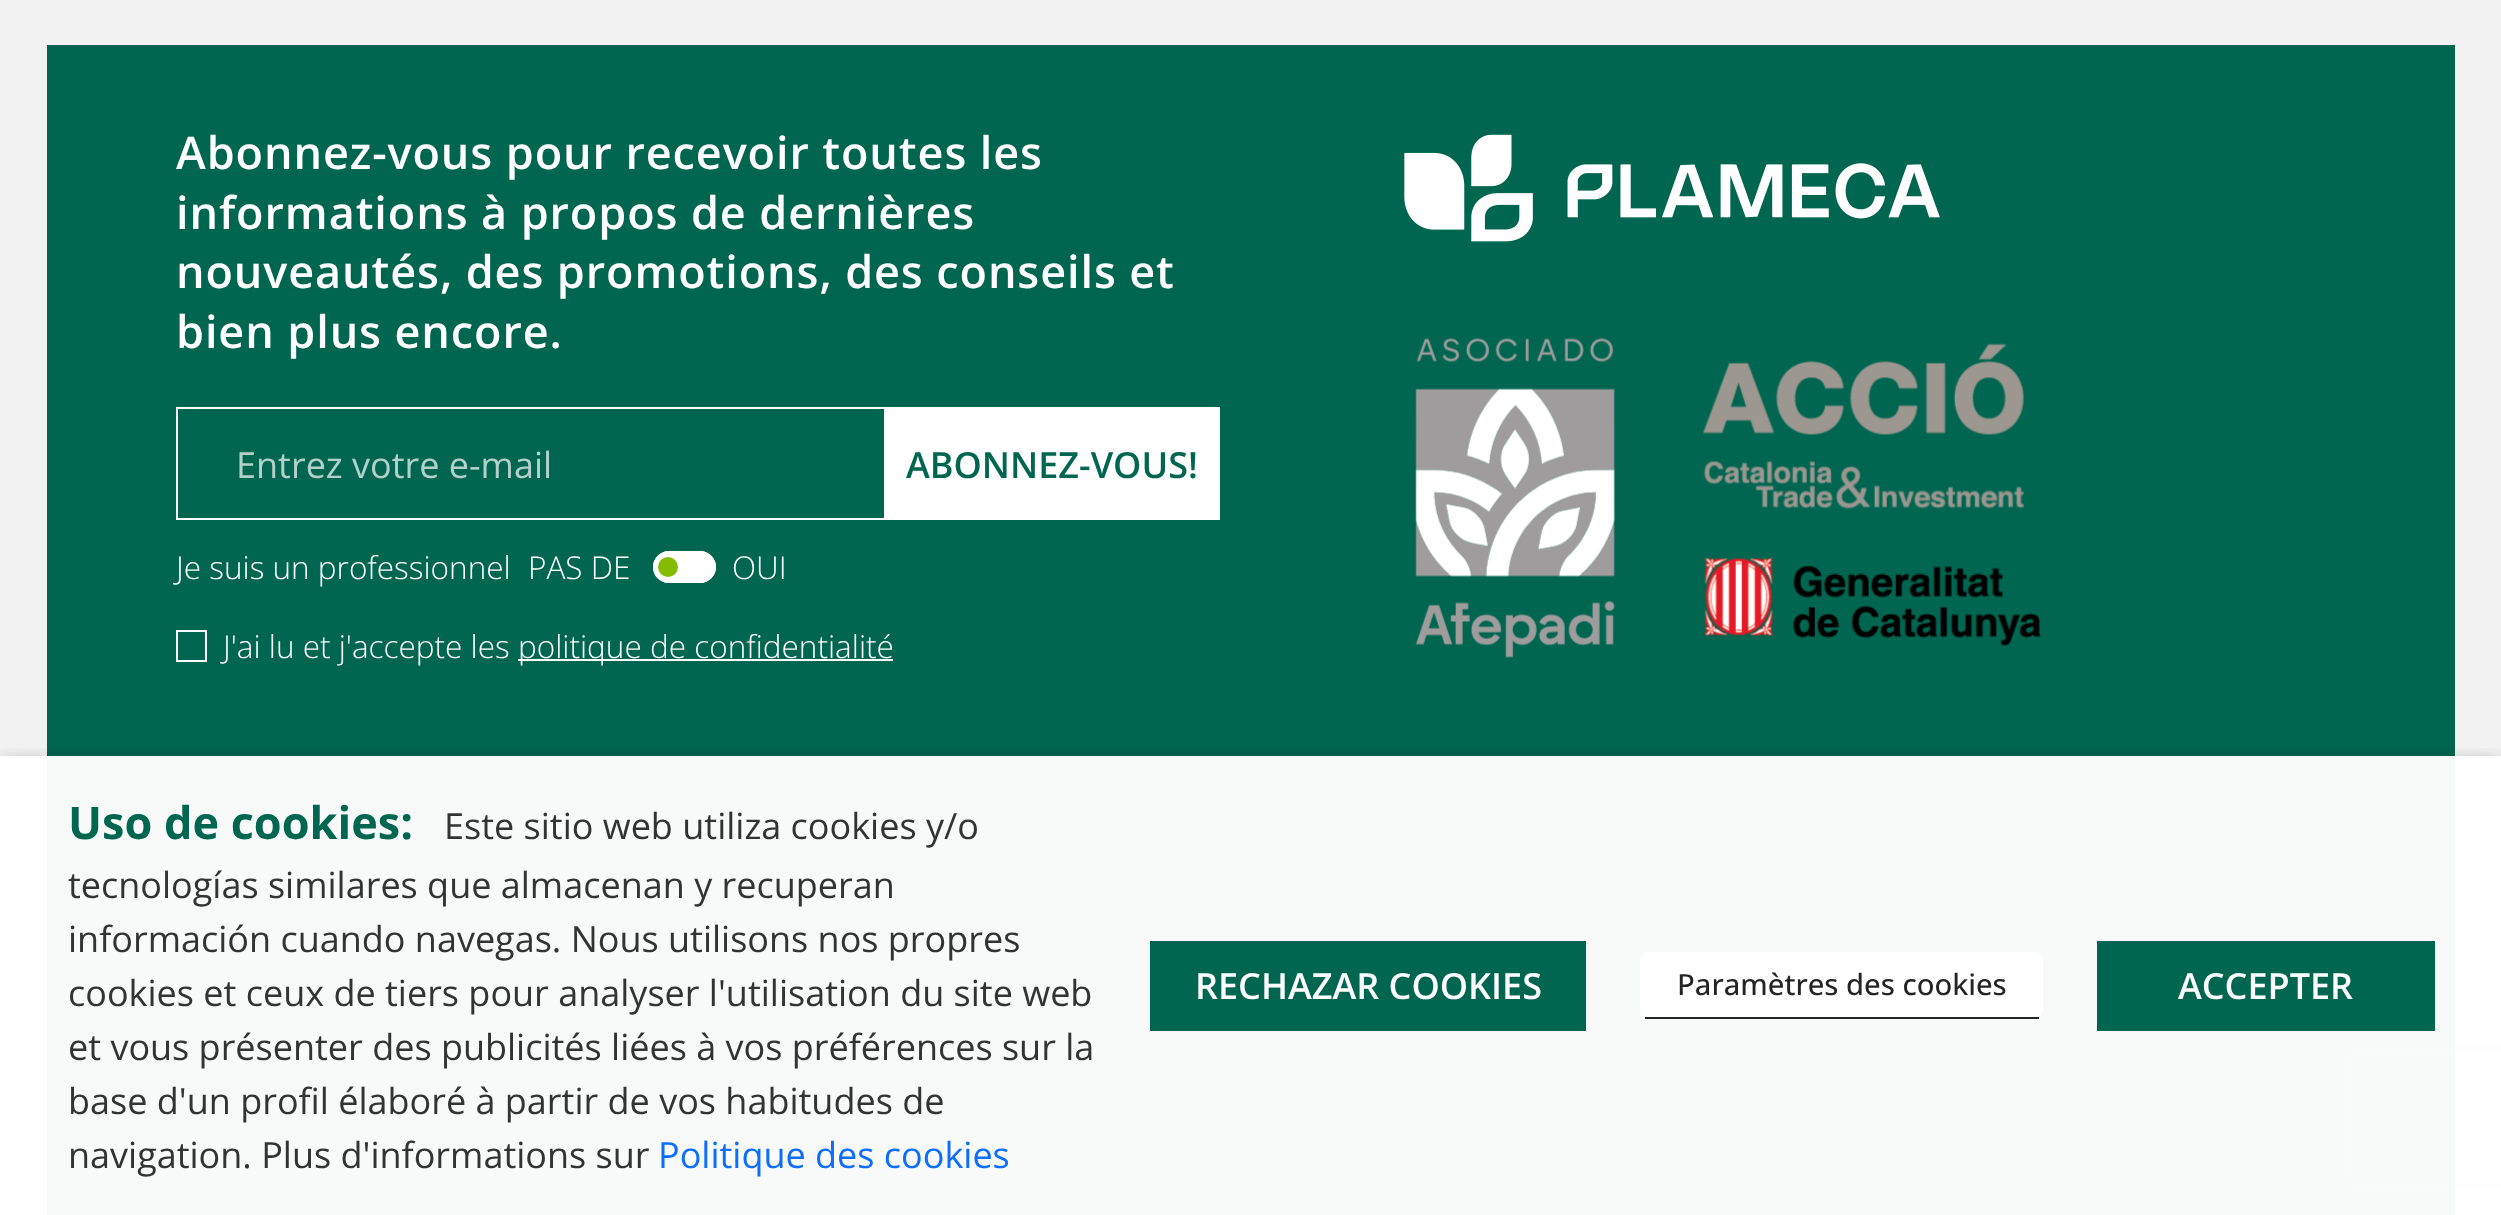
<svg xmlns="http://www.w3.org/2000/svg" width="2501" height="1215">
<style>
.a{font:600 45px Open Sans;letter-spacing:0.9px;fill:#fff}
.b{font:36px Open Sans;fill:#b3d1ca}
.c{font:300 31.5px Open Sans;fill:#fff}
.d{font:600 36px Open Sans;fill:#00664f}
.e{font:bold 45px Open Sans;fill:#00664f}
.f{font:36px Open Sans;fill:#333}
.g{font:36px Open Sans;fill:#0d6efd}
.h{font:600 36px Open Sans;fill:#fff}
.i{font:500 29.25px Open Sans;fill:#242424}
</style>
<defs>
<clipPath id="clip1"><path d="M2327 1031h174v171h-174zm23 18h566c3 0 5 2 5 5v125c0 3-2 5-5 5h-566c-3 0-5-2-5-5v-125c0-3 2-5 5-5z" clip-rule="evenodd"/></clipPath>
<clipPath id="clip2"><path d="M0 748h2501v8H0z"/></clipPath>
</defs>
<rect width="100%" height="100%" fill="#f2f2f2"/>
<path fill="#00664f" d="M47 45h2408v1170H47z"/>
<path fill="#fff" d="M176 407h708v2H176z"/>
<path fill="#fff" d="M176 518h708v2H176z"/>
<path fill="#fff" d="M176 407h2v113H176z"/>
<rect fill="#fff" x="653" y="551" width="63" height="32" rx="16"/>
<circle fill="#84bd00" cx="668" cy="567" r="10"/>
<rect fill="none" stroke="#fff" stroke-width="2" x="654" y="552" width="61" height="30" rx="15"/>
<path fill="none" stroke="#fff" stroke-width="2" d="M177 631h29v30H177z"/>
<path fill="#fff" d="M518 659h375v2H518z"/>
<g clip-path="url(#clip1)">
<rect fill="#808080" filter="blur(5.5px)" x="2345" y="1049" width="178" height="135" rx="5"/>
</g>
<path fill="#fff" d="M884 407h336v113H884z"/>
<image href="1.png" x="1404" y="134" width="536" height="108"/>
<image href="2.png" x="1415" y="338" width="200" height="320"/>
<image href="3.png" x="1702" y="343" width="339" height="303"/>
<g clip-path="url(#clip2)">
<path fill="#00000080" filter="blur(11px)" d="M0 767h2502v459H0z"/>
</g>
<path fill="#fffffff7" d="M0 756h2501v459H0z"/>
<path fill="#00664f" d="M1150 941h436v90H1150z"/>
<rect fill="#fff" x="1640" y="952" width="403" height="67" rx="9"/>
<path fill="#242424" d="M1645 1017h394v2H1645z"/>
<path fill="#00664f" d="M2097 941h338v90H2097z"/>
<text class="a" x="176" y="169">Abonnez-vous pour recevoir toutes les</text>
<text class="a" x="176" y="229">informations à propos de dernières</text>
<text class="a" x="176" y="288">nouveautés, des promotions, des conseils et</text>
<text class="a" x="176" y="348">bien plus encore.</text>
<text class="b" x="236" y="478">Entrez votre e-mail</text>
<text class="c" x="176" y="579">Je suis un professionnel</text>
<text class="c" x="528" y="579">PAS DE</text>
<text class="c" x="732" y="579">OUI</text>
<text class="c" x="223" y="658">J'ai lu et j'accepte les</text>
<text class="c" x="518" y="658">politique de confidentialité</text>
<text class="d" x="906" y="478">ABONNEZ-VOUS!</text>
<text class="e" x="68" y="839">Uso de cookies:</text>
<text class="f" x="444" y="839">Este sitio web utiliza cookies y/o</text>
<text class="f" x="68" y="898">tecnologías similares que almacenan y recuperan</text>
<text class="f" x="68" y="952">información cuando navegas. Nous utilisons nos propres</text>
<text class="f" x="68" y="1006">cookies et ceux de tiers pour analyser l'utilisation du site web</text>
<text class="f" x="68" y="1060">et vous présenter des publicités liées à vos préférences sur la</text>
<text class="f" x="68" y="1114">base d'un profil élaboré à partir de vos habitudes de</text>
<text class="f" x="68" y="1168">navigation. Plus d'informations sur</text>
<text class="g" x="658" y="1168">Politique des cookies</text>
<text class="h" x="1195" y="999">RECHAZAR COOKIES</text>
<text class="i" x="1677" y="995">Paramètres des cookies</text>
<text class="h" x="2178" y="999">ACCEPTER</text>
</svg>
